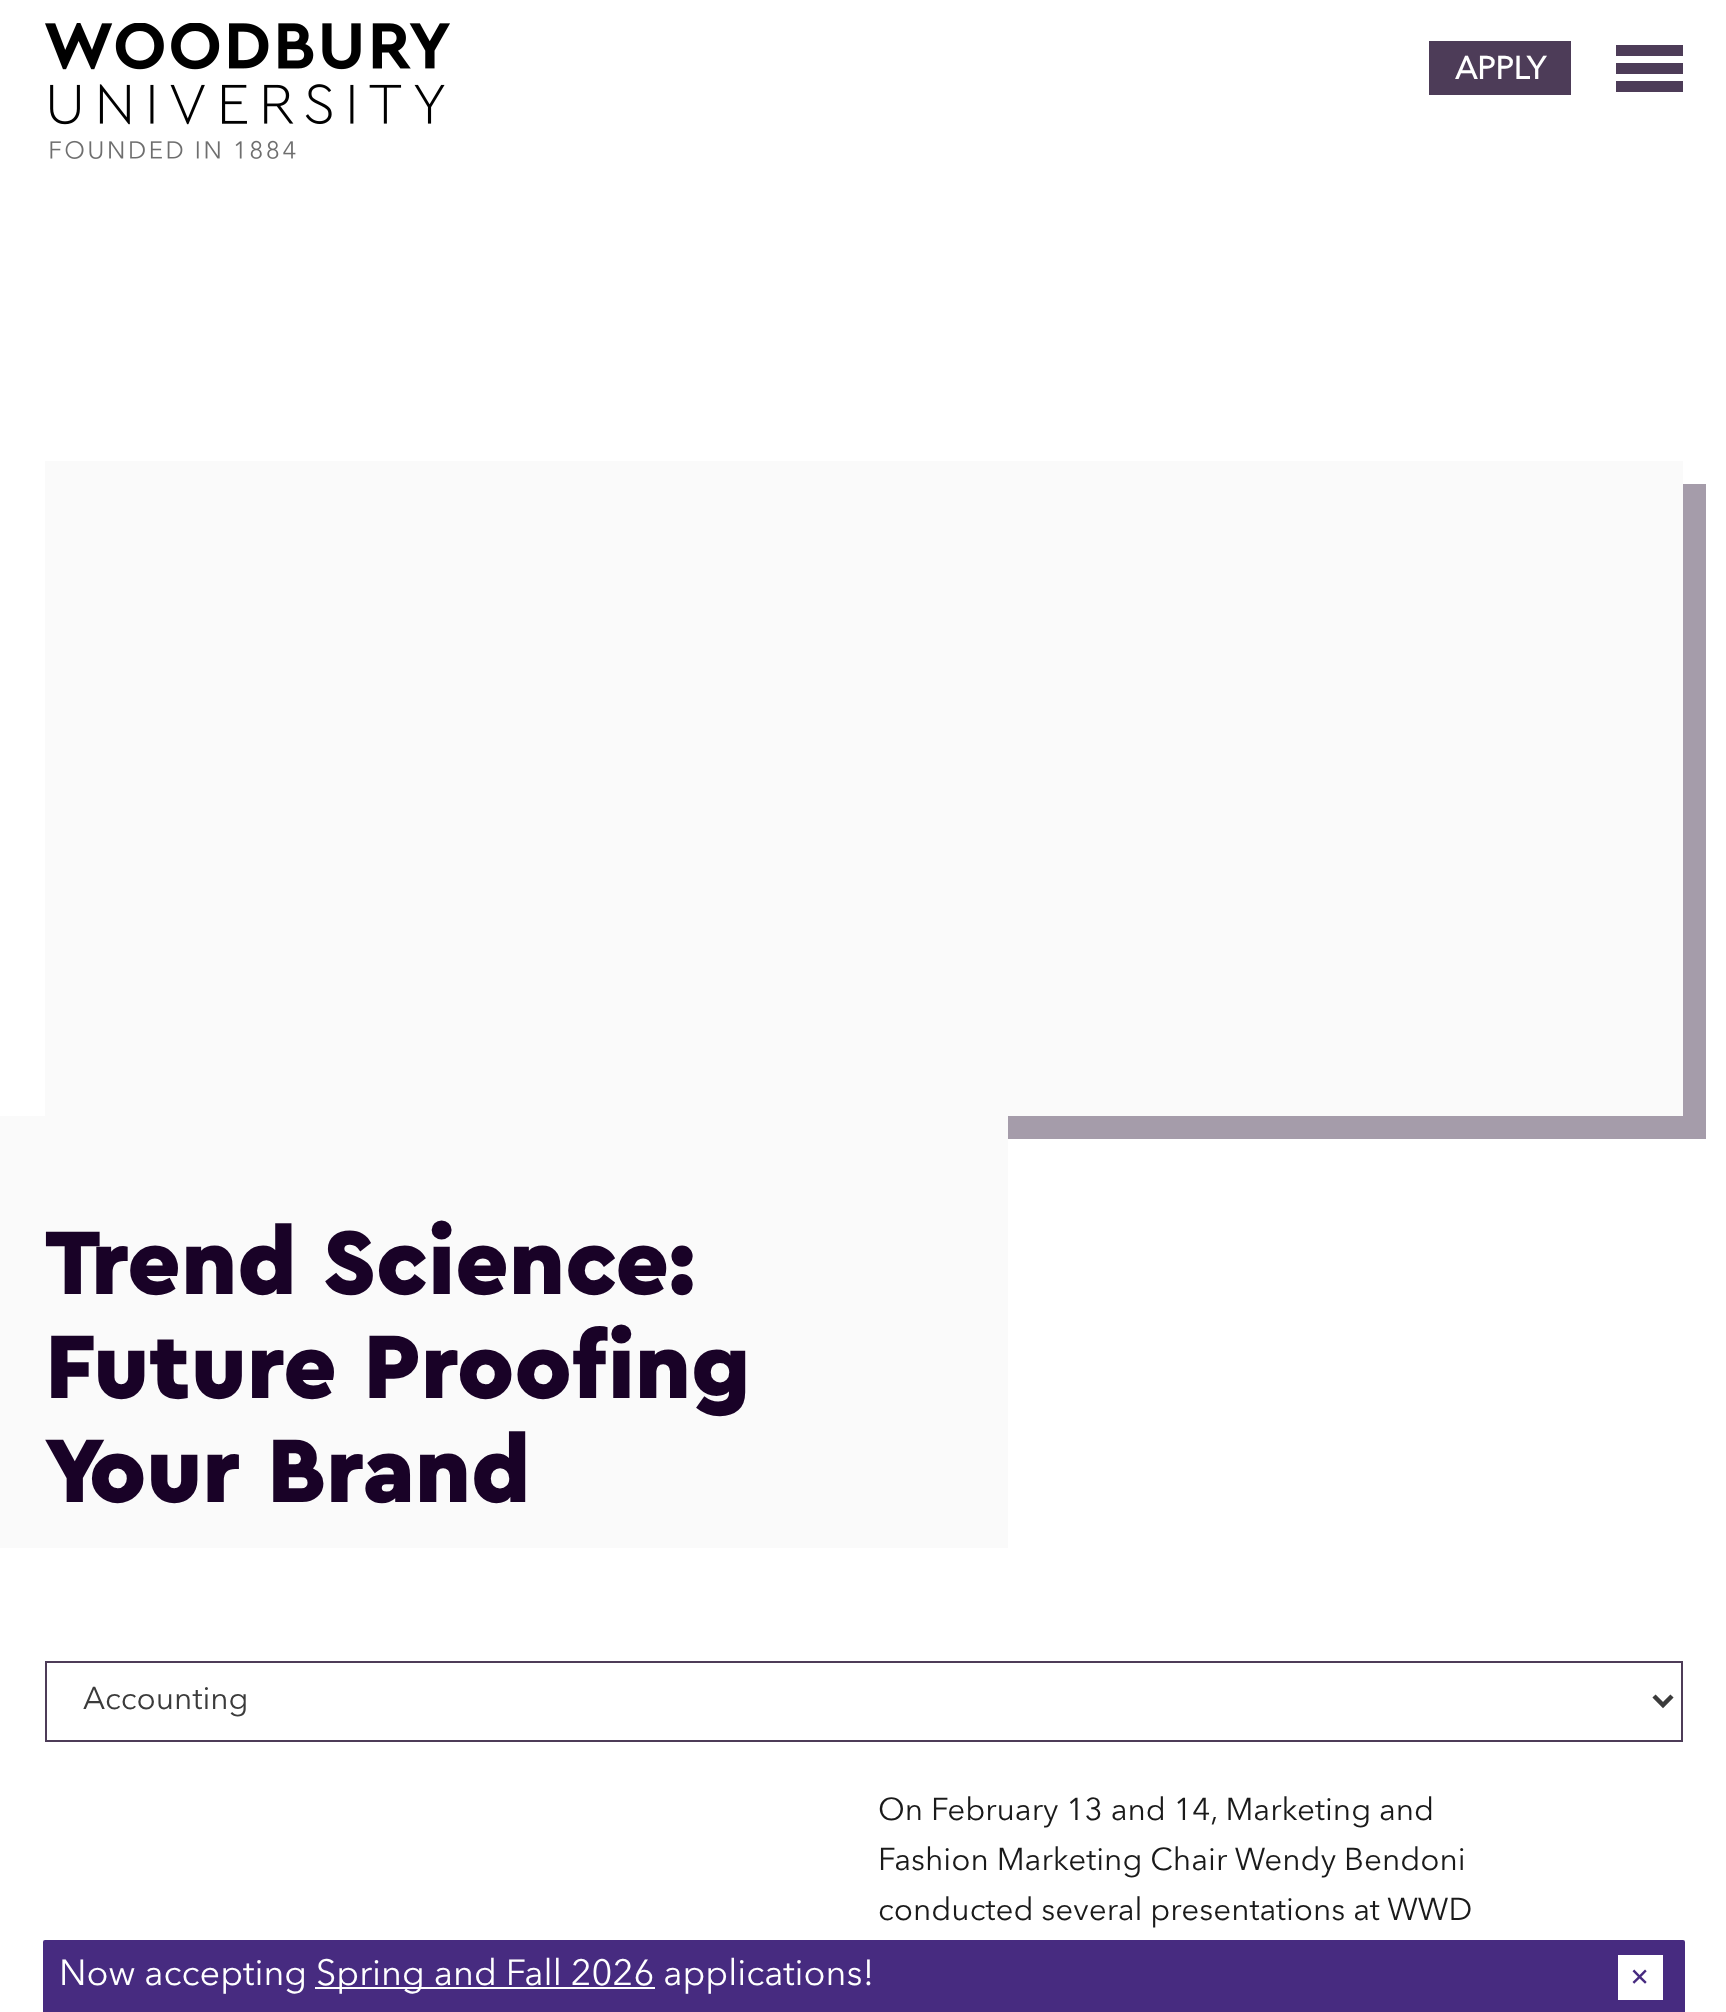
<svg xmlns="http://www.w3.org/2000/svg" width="1726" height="2012">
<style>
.a{font:bold 31.5px Avenir Next;fill:#fff}
.b{font:900 94.5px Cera;fill:#190227}
.c{font:31.5px Avenir Next;fill:#3b3b3b}
.d{font:31.5px Avenir Next;fill:#1a1a1a}
.e{font:36px Avenir Next;fill:#fff}
.f{font:bold 34px Liberation Serif;fill:#472b80}
</style>
<rect width="100%" height="100%" fill="#fff"/>
<image href="1.png" x="45" y="23" width="405" height="136"/>
<path fill="#4d3c58" d="M1429 41h142v54H1429z"/>
<path fill="#4d3c58" d="M1616 63h67v11H1616z"/>
<path fill="#4d3c58" d="M1616 45h67v11H1616z"/>
<path fill="#4d3c58" d="M1616 81h67v11H1616z"/>
<path fill="#a59caa" d="M1008 484h698v655H1008z"/>
<path fill="#fafafa" d="M45 461h1638v655H45z"/>
<path fill="#fafafa" d="M0 1116h1008v432H0z"/>
<path fill="none" stroke="#4d3c58" stroke-width="2" d="M46 1662h1636v79H46z"/>
<path fill="none" stroke="#3b3b3b" stroke-width="4.5" d="M1654 1696l9 9l9-9"/>
<rect fill="#472b80" x="43" y="1940" width="1642" height="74" rx="2"/>
<path fill="#fff" d="M315 1987h340v2H315z"/>
<path fill="#fff" d="M1618 1955h45v45H1618z"/>
<text class="a" x="1455" y="79">APPLY</text>
<text class="b" x="45" y="1294">Trend Science:</text>
<text class="b" x="45" y="1398">Future Proofing</text>
<text class="b" x="45" y="1502">Your Brand</text>
<text class="c" x="83" y="1709">Accounting</text>
<text class="d" x="878" y="1820">On February 13 and 14, Marketing and</text>
<text class="d" x="878" y="1870">Fashion Marketing Chair Wendy Bendoni</text>
<text class="d" x="878" y="1920">conducted several presentations at WWD</text>
<text class="e" x="59" y="1985">Now accepting</text>
<text class="e" x="316" y="1985">Spring and Fall 2026 applications!</text>
<text class="f" x="1630" y="1988">×</text>
</svg>
